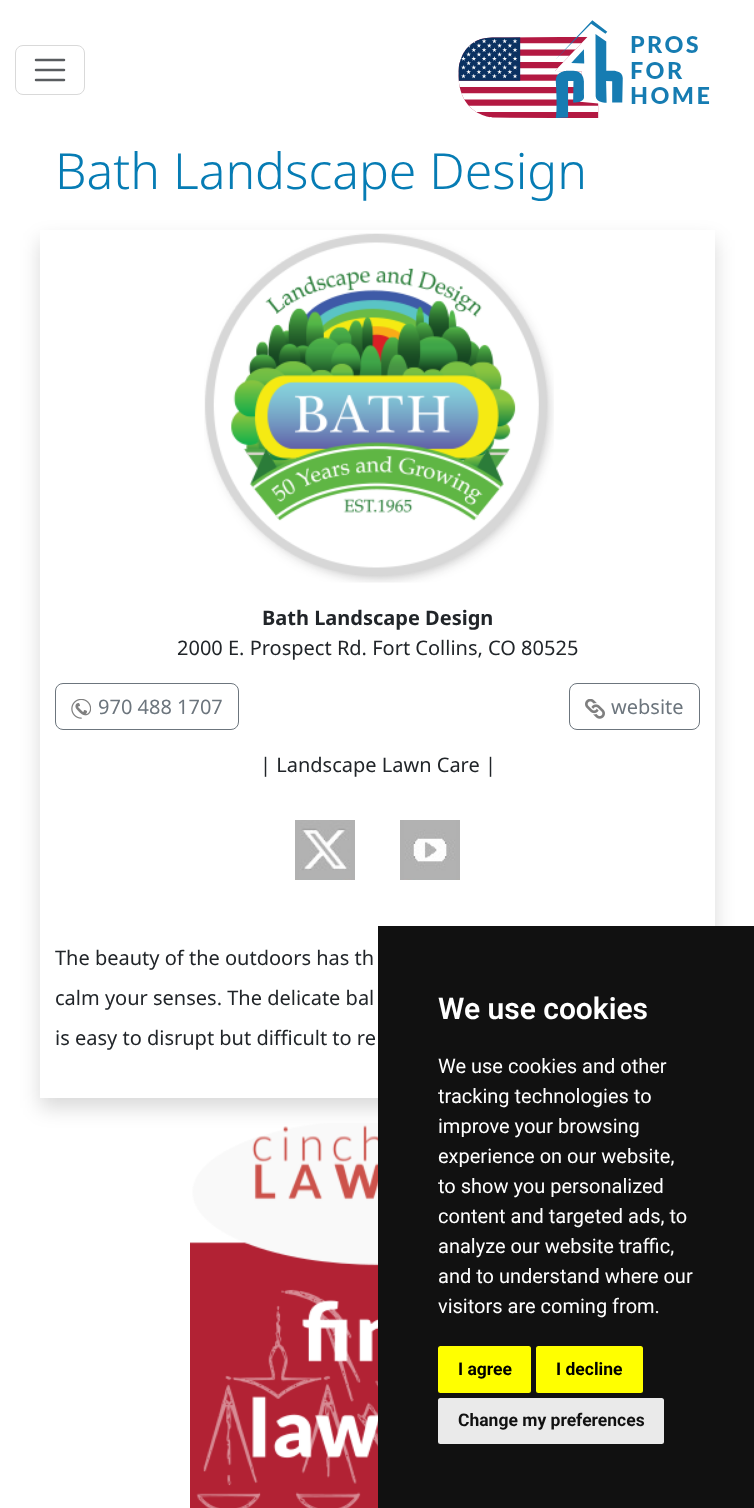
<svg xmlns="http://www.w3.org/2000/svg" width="754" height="1508">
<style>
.a{font:300 49.9px Noto Sans;fill:#067cb4}
.b{font:bold 20px Noto Sans;fill:#212529}
.c{font:20px Noto Sans;fill:#212529}
.d{font:20px Noto Sans;fill:#6c757d}
.e{font:600 30px Roboto;fill:#fff}
.f{font:20px Roboto;fill:#fff}
.g{font:bold 17.5px Roboto;fill:#000}
.h{font:bold 17.5px Roboto;fill:#111}
</style>
<defs>
<clipPath id="clip1"><path d="M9 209h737v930h-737zm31 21h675v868h-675z" clip-rule="evenodd"/></clipPath>
</defs>
<rect width="100%" height="100%" fill="#fff"/>
<rect fill="none" stroke="#d9d9d9" x="15.5" y="45.5" width="69" height="49" rx="7.5"/>
<path fill="none" stroke="#595c5f" stroke-width="2.5" stroke-linecap="round" d="M36 60h28m-28 10h28m-28 10h28"/>
<image href="1.png" x="458" y="20" width="252" height="98"/>
<g clip-path="url(#clip1)">
<path fill="#00000026" filter="blur(10px)" d="M40 240h675v868H40z"/>
</g>
<image href="2.png" x="204" y="233" width="350" height="350"/>
<rect fill="none" stroke="#6c757d" x="55.5" y="683.5" width="183" height="46" rx="7.5"/>
<image href="3.png" x="71" y="699" width="20" height="20"/>
<rect fill="none" stroke="#6c757d" x="569.5" y="683.5" width="130" height="46" rx="7.5"/>
<image href="4.png" x="585" y="699" width="20" height="20"/>
<image href="5.png" x="295" y="820" width="60" height="60"/>
<image href="6.png" x="400" y="820" width="60" height="60"/>
<image href="7.png" x="190" y="1123" width="188" height="385"/>
<path fill="#111" d="M378 926h376v582H378z"/>
<rect fill="#ff0" x="438" y="1346" width="93" height="47" rx="2.5"/>
<rect fill="#ff0" x="536" y="1346" width="107" height="47" rx="2.5"/>
<rect fill="#eaeaea" x="438" y="1398" width="226" height="46" rx="2.5"/>
<text class="a" x="55" y="189">Bath Landscape Design</text>
<text class="b" x="262" y="625">Bath Landscape Design</text>
<text class="c" x="177" y="655">2000 E. Prospect Rd. Fort Collins, CO 80525</text>
<text class="d" x="98" y="714">970 488 1707</text>
<text class="d" x="611" y="714">website</text>
<text class="c" x="260" y="772">| Landscape Lawn Care |</text>
<text class="c" x="55" y="965">The beauty of the outdoors has th</text>
<text class="c" x="55" y="1005">calm your senses. The delicate bal</text>
<text class="c" x="55" y="1045">is easy to disrupt but difficult to re</text>
<text class="e" x="438" y="1019">We use cookies</text>
<text class="f" x="438" y="1073">We use cookies and other</text>
<text class="f" x="438" y="1103">tracking technologies to</text>
<text class="f" x="438" y="1133">improve your browsing</text>
<text class="f" x="438" y="1163">experience on our website,</text>
<text class="f" x="438" y="1193">to show you personalized</text>
<text class="f" x="438" y="1223">content and targeted ads, to</text>
<text class="f" x="438" y="1253">analyze our website traffic,</text>
<text class="f" x="438" y="1283">and to understand where our</text>
<text class="f" x="438" y="1313">visitors are coming from.</text>
<text class="g" x="458" y="1375">I agree</text>
<text class="g" x="556" y="1375">I decline</text>
<text class="h" x="458" y="1426">Change my preferences</text>
</svg>
